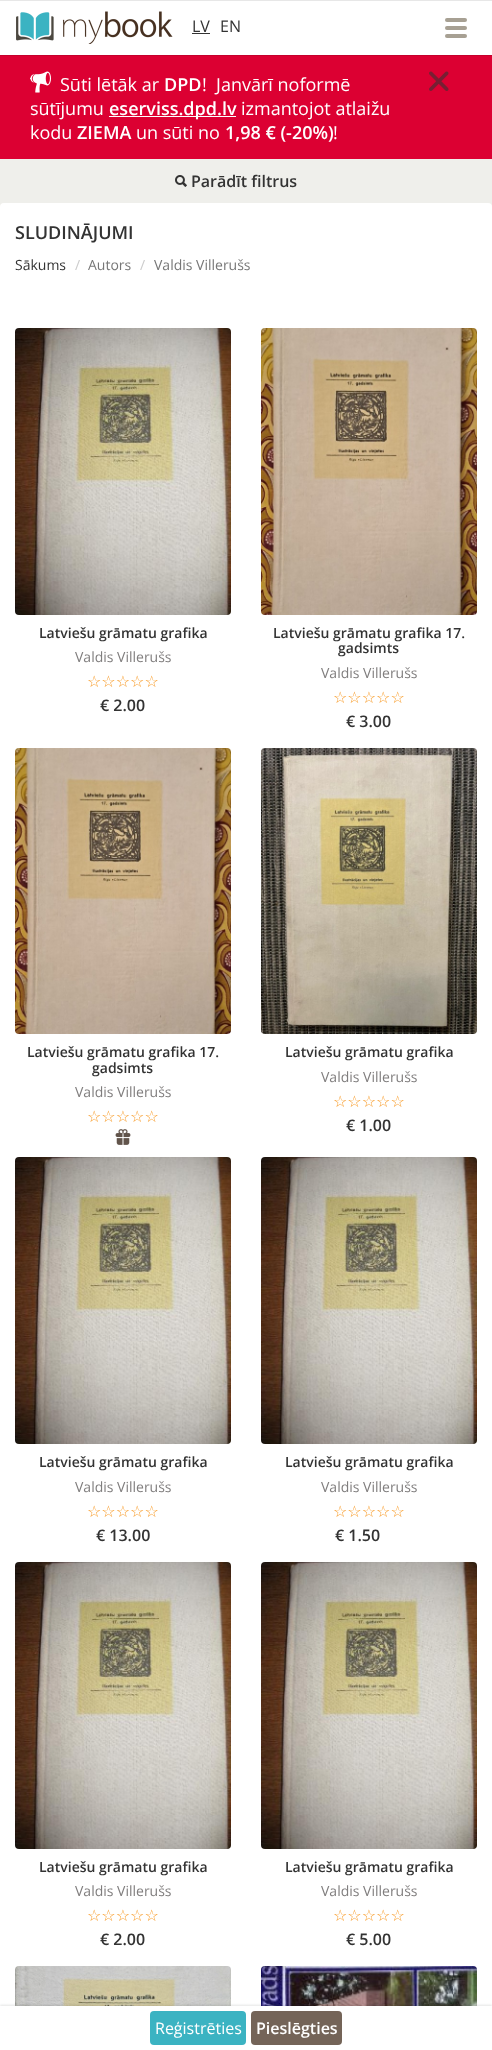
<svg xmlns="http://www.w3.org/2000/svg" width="492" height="2050">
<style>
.a{font:16px Open Sans;fill:#333}
.b{font:18px Open Sans;fill:#fff}
.c{font:600 18px Open Sans;fill:#fff}
.d{font:600 16px Open Sans;fill:#333}
.e{font:600 18px Open Sans;fill:#333}
.f{font:14px Open Sans;fill:#333}
.g{font:14px Open Sans;fill:#ccc}
.h{font:14px Open Sans;fill:#777}
.i{font:600 14px Open Sans;fill:#333}
.j{font:14px Open Sans;fill:#807e7e}
.k{font:16px DejaVu Sans;fill:#f89d2c}
.l{font:16px Open Sans;fill:#fff}
.m{font:600 16px Open Sans;fill:#fff}
</style>
<rect width="100%" height="100%" fill="#efefeb"/>
<path fill="#dc0032" d="M0 55h492v104H0z"/>
<path fill="#0000001a" filter="blur(0.5px)" d="M0 1h492v55H0z"/>
<path fill="#fff" d="M0 1h492v54H0z"/>
<path fill="#e7e7e7" d="M0 0h492v1H0z"/>
<image href="1.png" x="16" y="11" width="157" height="33"/>
<path fill="#333" d="M192 33h18v1H192z"/>
<rect fill="#a7a093" x="445" y="18" width="22" height="4" rx="2"/>
<rect fill="#a7a093" x="445" y="26" width="22" height="4" rx="2"/>
<rect fill="#a7a093" x="445" y="34" width="22" height="4" rx="2"/>
<image href="2.png" x="30" y="71" width="21" height="22"/>
<path fill="#fff" d="M109 116h127v1H109z"/>
<image href="3.png" x="429" y="71" width="20" height="20"/>
<image href="4.png" x="175" y="175" width="12" height="12"/>
<rect fill="#fff" y="203" width="492" height="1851" rx="4"/>
<image href="5.png" x="15" y="328" width="216" height="287"/>
<image href="6.png" x="261" y="328" width="216" height="287"/>
<image href="7.png" x="15" y="748" width="216" height="286"/>
<image href="8.png" x="115" y="1129" width="16" height="16"/>
<image href="9.png" x="261" y="748" width="216" height="286"/>
<image href="5.png" x="15" y="1157" width="216" height="287"/>
<image href="10.png" x="261" y="1157" width="216" height="287"/>
<image href="5.png" x="15" y="1562" width="216" height="287"/>
<image href="10.png" x="261" y="1562" width="216" height="287"/>
<image href="11.png" x="15" y="1966" width="216" height="40"/>
<image href="12.png" x="261" y="1966" width="216" height="40"/>
<path fill="#0000001a" filter="blur(1px)" d="M0 2005h492v44H0z"/>
<path fill="#fff" d="M0 2006h492v44H0z"/>
<rect fill="#3bb3c2" x="150" y="2011" width="96" height="34" rx="4"/>
<rect fill="#746458" x="251" y="2011" width="91" height="34" rx="4"/>
<text class="a" x="192" y="32">LV</text>
<text class="a" x="220" y="32">EN</text>
<text class="b" x="60" y="91">Sūti lētāk ar</text>
<text class="c" x="164" y="91">DPD</text>
<text class="b" xml:space="preserve" x="202" y="91">!  Janvārī noformē</text>
<text class="b" x="30" y="115">sūtījumu</text>
<text class="c" x="109" y="115">eserviss.dpd.lv</text>
<text class="b" x="241" y="115">izmantojot atlaižu</text>
<text class="b" x="30" y="139">kodu</text>
<text class="c" x="77" y="139">ZIEMA</text>
<text class="b" x="136" y="139">un sūti no</text>
<text class="c" x="225" y="139">1,98 € (-20%)</text>
<text class="b" x="333" y="139">!</text>
<text class="d" x="191" y="187">Parādīt filtrus</text>
<text class="e" x="15" y="239">SLUDINĀJUMI</text>
<text class="f" x="15" y="270">Sākums</text>
<text class="g" x="75" y="270">/</text>
<text class="h" x="88" y="270">Autors</text>
<text class="g" x="140" y="270">/</text>
<text class="h" x="154" y="270">Valdis Villerušs</text>
<text class="i" x="39" y="638">Latviešu grāmatu grafika</text>
<text class="j" x="75" y="662">Valdis Villerušs</text>
<text class="k" x="87" y="687">☆☆☆☆☆</text>
<text class="d" x="100" y="711">€ 2.00</text>
<text class="i" x="273" y="638">Latviešu grāmatu grafika 17.</text>
<text class="i" x="338" y="653">gadsimts</text>
<text class="j" x="321" y="678">Valdis Villerušs</text>
<text class="k" x="333" y="703">☆☆☆☆☆</text>
<text class="d" x="346" y="727">€ 3.00</text>
<text class="i" x="27" y="1057">Latviešu grāmatu grafika 17.</text>
<text class="i" x="92" y="1073">gadsimts</text>
<text class="j" x="75" y="1097">Valdis Villerušs</text>
<text class="k" x="87" y="1122">☆☆☆☆☆</text>
<text class="i" x="285" y="1057">Latviešu grāmatu grafika</text>
<text class="j" x="321" y="1082">Valdis Villerušs</text>
<text class="k" x="333" y="1107">☆☆☆☆☆</text>
<text class="d" x="346" y="1131">€ 1.00</text>
<text class="i" x="39" y="1467">Latviešu grāmatu grafika</text>
<text class="j" x="75" y="1492">Valdis Villerušs</text>
<text class="k" x="87" y="1517">☆☆☆☆☆</text>
<text class="d" x="96" y="1541">€ 13.00</text>
<text class="i" x="285" y="1467">Latviešu grāmatu grafika</text>
<text class="j" x="321" y="1492">Valdis Villerušs</text>
<text class="k" x="333" y="1517">☆☆☆☆☆</text>
<text class="d" x="335" y="1541">€ 1.50</text>
<text class="i" x="39" y="1872">Latviešu grāmatu grafika</text>
<text class="j" x="75" y="1896">Valdis Villerušs</text>
<text class="k" x="87" y="1921">☆☆☆☆☆</text>
<text class="d" x="100" y="1945">€ 2.00</text>
<text class="i" x="285" y="1872">Latviešu grāmatu grafika</text>
<text class="j" x="321" y="1896">Valdis Villerušs</text>
<text class="k" x="333" y="1921">☆☆☆☆☆</text>
<text class="d" x="346" y="1945">€ 5.00</text>
<text class="l" x="155" y="2034">Reģistrēties</text>
<text class="m" x="256" y="2034">Pieslēgties</text>
</svg>
